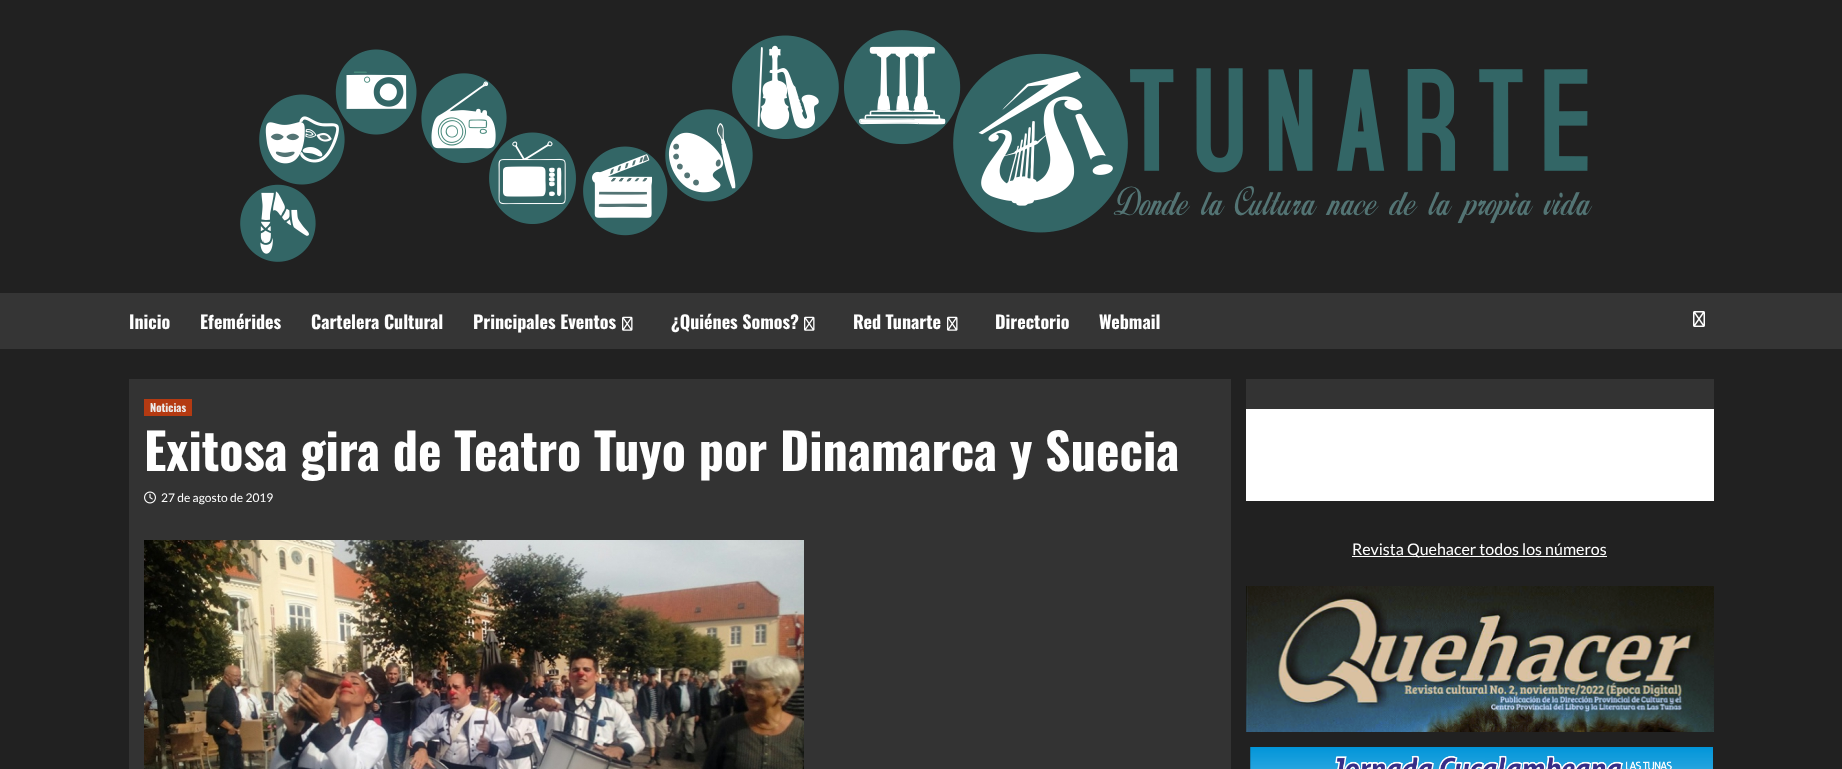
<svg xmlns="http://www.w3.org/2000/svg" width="1842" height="769">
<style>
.a{font:bold 18px Oswald;fill:#fff}
.b{font:bold 11px Oswald;fill:#ebebeb}
.c{font:bold 50px Oswald;fill:#fff}
.d{font:12px Lato;fill:#fff}
.e{font:16px Lato;fill:#fff}
</style>
<rect width="100%" height="100%" fill="#212121"/>
<image href="1.png" x="240" y="30" width="1353" height="232"/>
<path fill="#353535" d="M0 293h1842v56H0z"/>
<image href="2.png" x="622" y="316" width="11" height="15"/>
<image href="2.png" x="804" y="316" width="11" height="15"/>
<image href="2.png" x="947" y="316" width="11" height="15"/>
<image href="3.png" x="1693" y="311" width="12" height="16"/>
<path fill="#333" d="M129 379h1102v390H129z"/>
<path fill="#b43a12" d="M144 399h48v17H144z"/>
<image href="4.png" x="144" y="491" width="12" height="13"/>
<image href="5.png" x="144" y="540" width="660" height="229"/>
<path fill="#fff" d="M1246 409h468v92H1246z"/>
<path fill="#333" d="M1246 379h468v30H1246z"/>
<path fill="#fff" d="M1352 556h255v1H1352z"/>
<image href="6.png" x="1246" y="586" width="468" height="146"/>
<image href="7.png" x="1250" y="747" width="463" height="22"/>
<text class="a" x="129" y="329">Inicio</text>
<text class="a" x="200" y="329">Efemérides</text>
<text class="a" x="311" y="329">Cartelera Cultural</text>
<text class="a" x="473" y="329">Principales Eventos</text>
<text class="a" x="671" y="329">¿Quiénes Somos?</text>
<text class="a" x="853" y="329">Red Tunarte</text>
<text class="a" x="995" y="329">Directorio</text>
<text class="a" x="1099" y="329">Webmail</text>
<text class="b" x="150" y="412">Noticias</text>
<text class="c" x="144" y="471">Exitosa gira de Teatro Tuyo por Dinamarca y Suecia</text>
<text class="d" x="161" y="502">27 de agosto de 2019</text>
<text class="e" x="1352" y="555">Revista Quehacer todos los números</text>
</svg>
